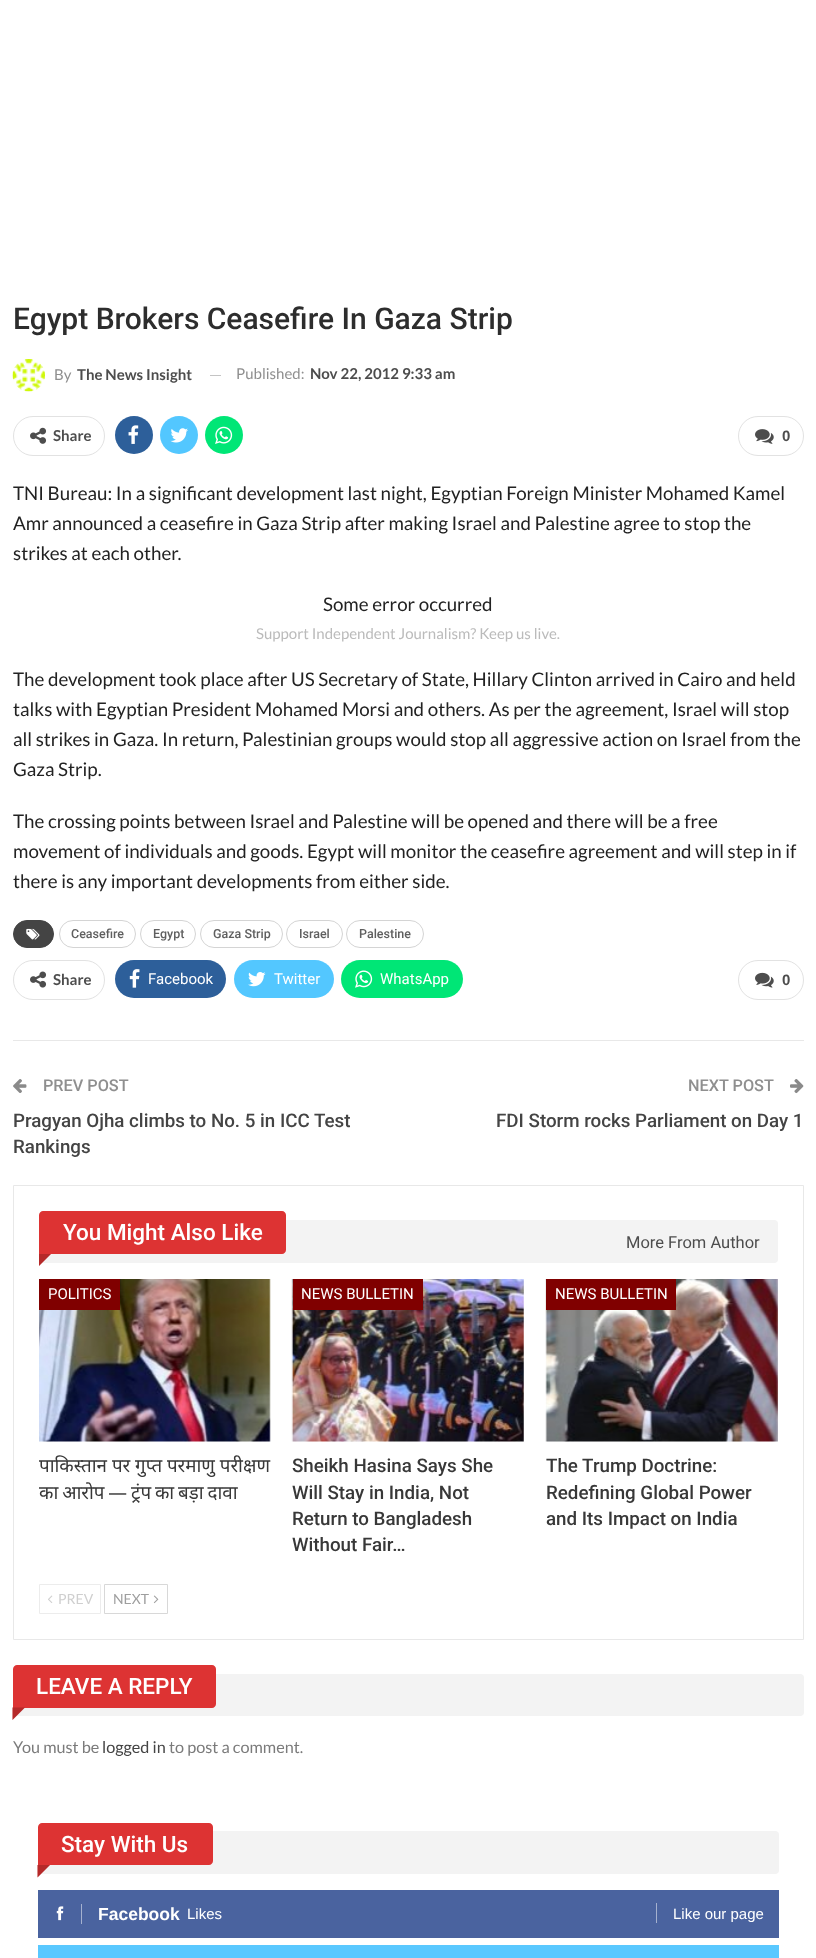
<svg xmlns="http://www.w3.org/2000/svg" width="816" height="1958">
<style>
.a{font:500 30px Roboto;fill:#2d2d2d}
.b{font:15px Lato;fill:#8f8f8f}
.c{font:bold 15px Lato;fill:#4d4d4d}
.d{font:bold 15px Liberation Sans;fill:#4d4d4d}
.e{font:18.75px Lato;fill:#222}
.f{font:15px Lato;fill:#bbb}
.g{font:500 12.5px Roboto;fill:#5f5f5f}
.h{font:15px Roboto;fill:#fff}
.i{font:500 16.25px Roboto;fill:#8f8f8f}
.j{font:500 18.75px Roboto;fill:#444}
.k{font:500 22.5px Roboto;fill:#fff}
.l{font:16.5px Roboto;fill:#4d4d4d}
.m{font:18.75px Noto Sans;fill:#383838}
.n{font:500 18.75px Roboto;fill:#383838}
.o{font:14px Lato;fill:#cfcfcf}
.p{font:14px Lato;fill:#9e9e9e}
.q{font:16.25px Lato;fill:#7b7b7b}
.r{font:16.25px Lato;fill:#444}
.s{font:bold 17.5px Liberation Sans;fill:#fff}
.t{font:15px Liberation Sans;fill:#fff}
</style>
<rect width="100%" height="100%" fill="#fff"/>
<image href="1.png" x="12" y="359" width="33" height="33"/>
<path fill="#c4c4c4" d="M210 375h11v1H210z"/>
<rect fill="none" stroke="#e2e2e2" x="13.5" y="416.5" width="91" height="39" rx="19.5"/>
<image href="2.png" x="30" y="427" width="17" height="17"/>
<circle fill="#2d5f9a" cx="134" cy="435" r="19"/>
<image href="3.png" x="128" y="425" width="11" height="19"/>
<circle fill="#53c7ff" cx="179" cy="435" r="19"/>
<image href="4.png" x="170" y="428" width="18" height="15"/>
<circle fill="#00e676" cx="224" cy="435" r="19"/>
<image href="5.png" x="215" y="426" width="18" height="18"/>
<rect fill="none" stroke="#e2e2e2" x="738.5" y="416.5" width="65" height="39" rx="19.5"/>
<image href="6.png" x="755" y="429" width="19" height="15"/>
<rect fill="#444" stroke="#444" x="13.5" y="920.5" width="40" height="27" rx="13.5"/>
<image href="7.png" x="26" y="928" width="14" height="12"/>
<rect fill="none" stroke="#d4d4d4" x="59.5" y="920.5" width="76" height="27" rx="13.5"/>
<rect fill="none" stroke="#d4d4d4" x="140.5" y="920.5" width="55" height="27" rx="13.5"/>
<rect fill="none" stroke="#d4d4d4" x="200.5" y="920.5" width="82" height="27" rx="13.5"/>
<rect fill="none" stroke="#d4d4d4" x="286.5" y="920.5" width="56" height="27" rx="13.5"/>
<rect fill="none" stroke="#d4d4d4" x="346.5" y="920.5" width="77" height="27" rx="13.5"/>
<rect fill="none" stroke="#e2e2e2" x="13.5" y="960.5" width="91" height="39" rx="19.5"/>
<image href="8.png" x="30" y="971" width="17" height="17"/>
<rect fill="#2d5f9a" x="115" y="960" width="111" height="38" rx="19"/>
<image href="9.png" x="129" y="969" width="11" height="19"/>
<rect fill="#53c7ff" x="234" y="960" width="100" height="38" rx="19"/>
<image href="10.png" x="248" y="972" width="18" height="15"/>
<rect fill="#00e676" x="341" y="960" width="122" height="38" rx="19"/>
<image href="11.png" x="355" y="970" width="18" height="18"/>
<rect fill="none" stroke="#e2e2e2" x="738.5" y="960.5" width="65" height="39" rx="19.5"/>
<image href="12.png" x="755" y="972" width="19" height="16"/>
<path fill="#e8e8e8" d="M13 1040h791v1H13z"/>
<image href="13.png" x="13" y="1079" width="14" height="14"/>
<image href="14.png" x="790" y="1079" width="14" height="15"/>
<path fill="none" stroke="#e8e8e8" d="M13.5 1185.5h790v454H13.5z"/>
<rect fill="#f3f3f3" x="39" y="1220" width="739" height="43" rx="4"/>
<path fill="#d33" d="M43 1211h239c2 0 4 2 4 4v35c0 2-2 4-4 4h-243v-39c0-2 2-4 4-4z"/>
<path fill="#d33" d="M39 1254h12l-12 12z"/>
<path fill="#0000002e" d="M39 1254h12l-12 12z"/>
<image href="15.png" x="39" y="1279" width="232" height="163"/>
<path fill="#800000" d="M39 1279h81v31H39z"/>
<image href="16.png" x="291" y="1279" width="233" height="163"/>
<path fill="#800000" d="M293 1279h130v31H293z"/>
<path fill="#f5f5f5" d="M546 1279h232v162H546z"/>
<image href="17.png" x="545" y="1279" width="233" height="163"/>
<path fill="#800000" d="M546 1279h130v31H546z"/>
<path fill="none" stroke="#ececec" d="M39.5 1584.5h61v29H39.5z"/>
<image href="18.png" x="48" y="1595" width="5" height="8"/>
<path fill="none" stroke="#d8d8d8" d="M104.5 1584.5h63v29H104.5z"/>
<image href="19.png" x="153" y="1595" width="6" height="9"/>
<rect fill="#f3f3f3" x="13" y="1674" width="791" height="42" rx="4"/>
<path fill="#d33" d="M17 1665h195c2 0 4 2 4 4v35c0 2-2 4-4 4h-199v-39c0-2 2-4 4-4z"/>
<path fill="#d33" d="M12.5 1707.5h12.5l-12.5 12.5z"/>
<path fill="#0000002e" d="M12.5 1707.5h12.5l-12.5 12.5z"/>
<rect fill="#f3f3f3" x="38" y="1831" width="741" height="43" rx="4"/>
<path fill="#d33" d="M42 1823h167c2 0 4 2 4 4v34c0 2-2 4-4 4h-171v-38c0-2 2-4 4-4z"/>
<path fill="#d33" d="M37.5 1865h12.5l-12.5 12.5z"/>
<path fill="#0000002e" d="M37.5 1865h12.5l-12.5 12.5z"/>
<path fill="#4a639f" d="M38 1890h741v48H38z"/>
<image href="20.png" x="56" y="1906" width="8" height="15"/>
<path fill="#a5b1cf" d="M81 1904h1v20H81z"/>
<path fill="#a5b1cf" d="M656 1903h1v20H656z"/>
<path fill="#59c8ff" d="M38 1945h741v13H38z"/>
<text class="a" x="13" y="329">Egypt Brokers Ceasefire In Gaza Strip</text>
<text class="b" x="54" y="380">By</text>
<text class="c" x="77" y="380">The News Insight</text>
<text class="b" x="236" y="379">Published:</text>
<text class="c" x="310" y="379">Nov 22, 2012 9:33 am</text>
<text class="c" x="53" y="441">Share</text>
<text class="d" x="782" y="441">0</text>
<text class="e" x="13" y="500">TNI Bureau: In a significant development last night, Egyptian Foreign Minister Mohamed Kamel</text>
<text class="e" x="13" y="530">Amr announced a ceasefire in Gaza Strip after making Israel and Palestine agree to stop the</text>
<text class="e" x="13" y="560">strikes at each other.</text>
<text class="e" x="323" y="611">Some error occurred</text>
<text class="f" x="256" y="639">Support Independent Journalism? Keep us live.</text>
<text class="e" x="13" y="686">The development took place after US Secretary of State, Hillary Clinton arrived in Cairo and held</text>
<text class="e" x="13" y="716">talks with Egyptian President Mohamed Morsi and others. As per the agreement, Israel will stop</text>
<text class="e" x="13" y="746">all strikes in Gaza. In return, Palestinian groups would stop all aggressive action on Israel from the</text>
<text class="e" x="13" y="776">Gaza Strip.</text>
<text class="e" x="13" y="828">The crossing points between Israel and Palestine will be opened and there will be a free</text>
<text class="e" x="13" y="858">movement of individuals and goods. Egypt will monitor the ceasefire agreement and will step in if</text>
<text class="e" x="13" y="888">there is any important developments from either side.</text>
<text class="g" x="71" y="938">Ceasefire</text>
<text class="g" x="153" y="938">Egypt</text>
<text class="g" x="213" y="938">Gaza Strip</text>
<text class="g" x="299" y="938">Israel</text>
<text class="g" x="359" y="938">Palestine</text>
<text class="c" x="53" y="985">Share</text>
<text class="h" x="148" y="984">Facebook</text>
<text class="h" x="274" y="984">Twitter</text>
<text class="h" x="380" y="984">WhatsApp</text>
<text class="d" x="782" y="985">0</text>
<text class="i" x="43" y="1091">PREV POST</text>
<text class="j" x="13" y="1127">Pragyan Ojha climbs to No. 5 in ICC Test</text>
<text class="j" x="13" y="1153">Rankings</text>
<text class="i" x="688" y="1091">NEXT POST</text>
<text class="j" x="496" y="1127">FDI Storm rocks Parliament on Day 1</text>
<text class="k" x="63" y="1240">You Might Also Like</text>
<text class="l" x="626" y="1248">More From Author</text>
<text class="h" x="48" y="1299">POLITICS</text>
<text class="m" x="39" y="1472">पाकिस्तान पर गुप्त परमाणु परीक्षण</text>
<text class="m" x="39" y="1499" word-spacing="-1">का आरोप — ट्रंप का बड़ा दावा</text>
<text class="h" x="301" y="1299">NEWS BULLETIN</text>
<text class="n" x="292" y="1472">Sheikh Hasina Says She</text>
<text class="n" x="292" y="1499">Will Stay in India, Not</text>
<text class="n" x="292" y="1525">Return to Bangladesh</text>
<text class="n" x="292" y="1551">Without Fair…</text>
<text class="h" x="555" y="1299">NEWS BULLETIN</text>
<text class="n" x="546" y="1472">The Trump Doctrine:</text>
<text class="n" x="546" y="1499">Redefining Global Power</text>
<text class="n" x="546" y="1525">and Its Impact on India</text>
<text class="o" x="58" y="1604">PREV</text>
<text class="p" x="113" y="1604">NEXT</text>
<text class="k" x="36" y="1694">LEAVE A REPLY</text>
<text class="q" x="13" y="1753">You must be</text>
<text class="r" x="102" y="1753">logged in</text>
<text class="q" x="169" y="1753">to post a comment.</text>
<text class="k" x="61" y="1852">Stay With Us</text>
<text class="s" x="98" y="1920">Facebook</text>
<text class="t" x="187" y="1919">Likes</text>
<text class="t" x="673" y="1919">Like our page</text>
</svg>
